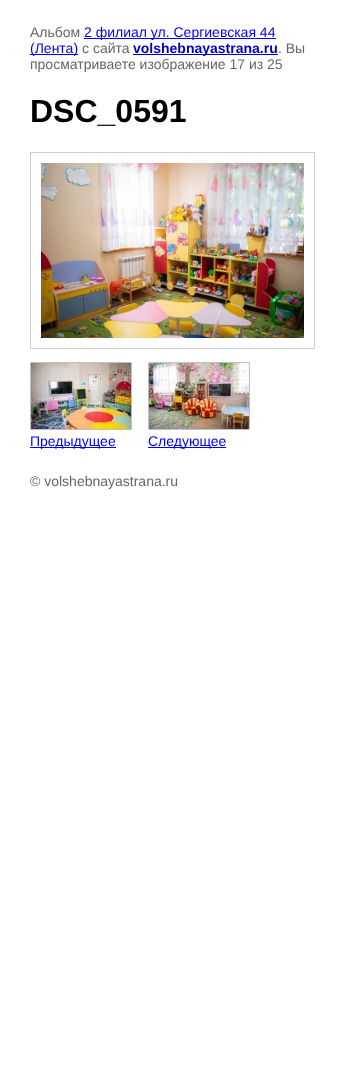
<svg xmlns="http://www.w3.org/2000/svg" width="345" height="1072">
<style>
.a{font:14px Liberation Sans;fill:#666}
.b{font:14px Liberation Sans;fill:#00f}
.c{font:bold 14px Liberation Sans;fill:#00c}
.d{font:bold 32px Liberation Sans;fill:#000}
</style>
<rect width="100%" height="100%" fill="#fff"/>
<path fill="#00f" d="M84 38h192v1H84z"/>
<path fill="#00f" d="M30 54h48v1H30z"/>
<path fill="#00c" d="M133 54h145v1H133z"/>
<path fill="none" stroke="#ccc" d="M30.5 152.5h284v196H30.5z"/>
<image href="1.png" x="41" y="163" width="263" height="175"/>
<path fill="none" stroke="#c0c0c0" d="M30.5 362.5h101v67H30.5z"/>
<image href="2.png" x="31" y="363" width="100" height="66"/>
<path fill="#00f" d="M30 447h86v1H30z"/>
<path fill="none" stroke="#c0c0c0" d="M148.5 362.5h101v67H148.5z"/>
<image href="3.png" x="149" y="363" width="100" height="66"/>
<path fill="#00f" d="M148 447h78v1H148z"/>
<text class="a" x="30" y="37">Альбом</text>
<text class="b" x="84" y="37">2 филиал ул. Сергиевская 44</text>
<text class="b" x="30" y="53">(Лента)</text>
<text class="a" x="82" y="53">с сайта</text>
<text class="c" x="133" y="53">volshebnayastrana.ru</text>
<text class="a" x="278" y="53">. Вы</text>
<text class="a" x="30" y="69">просматриваете изображение 17 из 25</text>
<text class="d" x="30" y="122">DSC_0591</text>
<text class="b" x="30" y="446">Предыдущее</text>
<text class="b" x="148" y="446">Следующее</text>
<text class="a" x="30" y="486">© volshebnayastrana.ru</text>
</svg>
